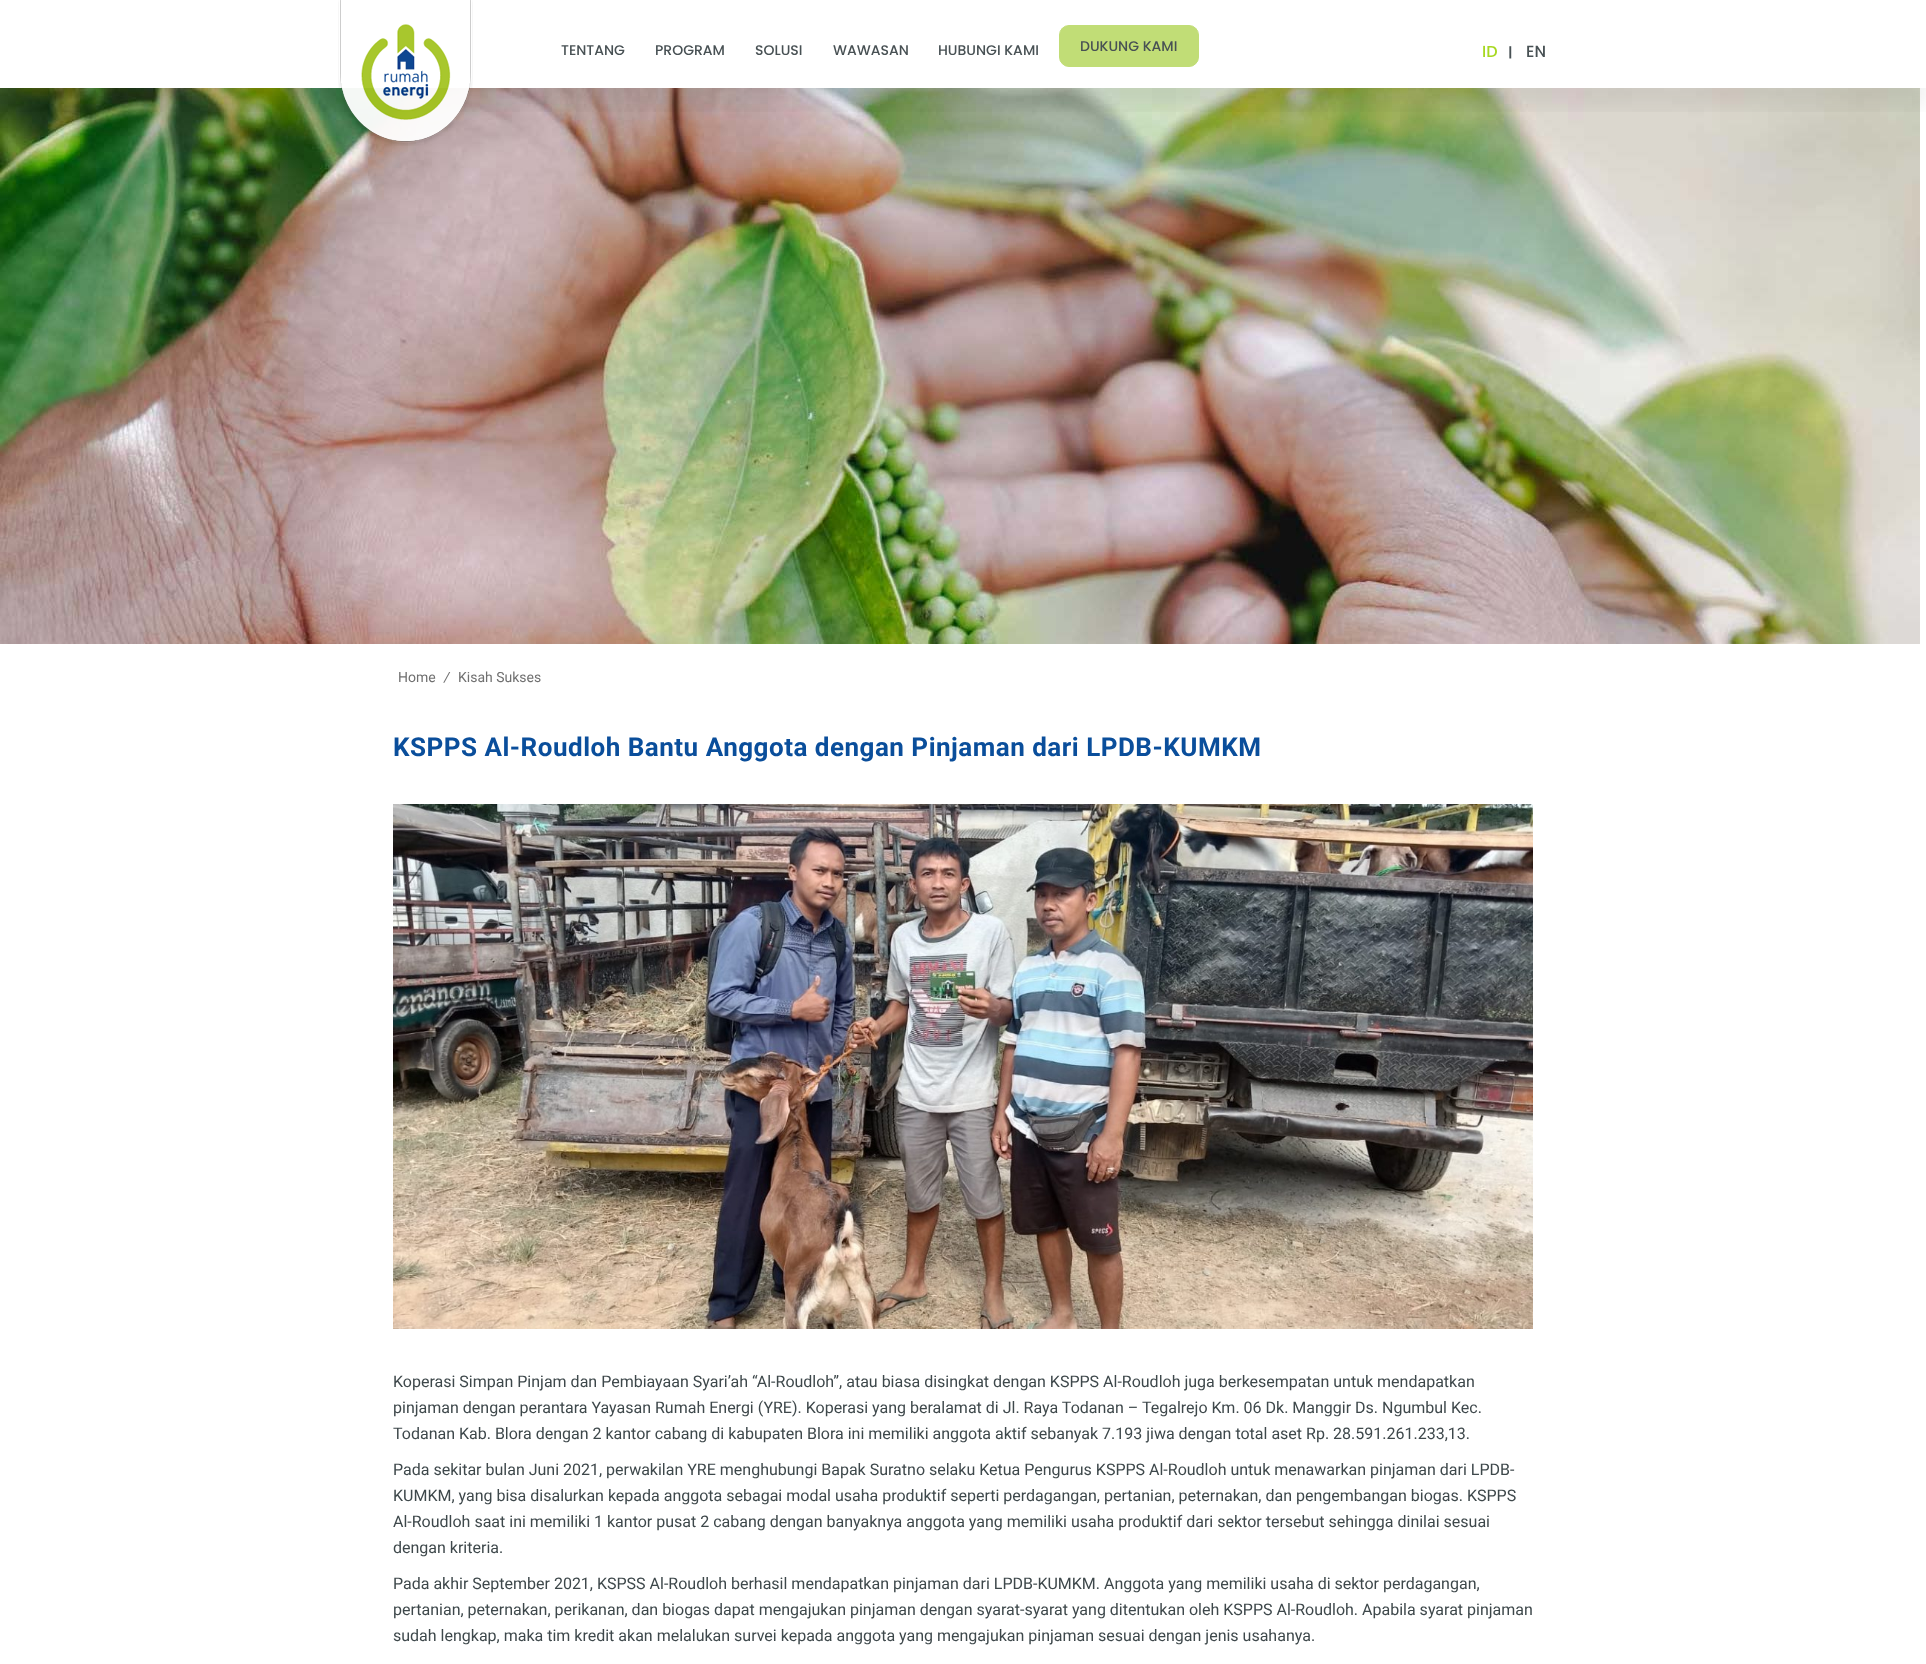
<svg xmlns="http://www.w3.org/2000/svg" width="1926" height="1664">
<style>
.a{font:500 14px Poppins;fill:#485154}
.b{font:500 16px Poppins;fill:#a7d821}
.c{font:bold 13px Poppins;fill:#485154}
.d{font:500 16px Poppins;fill:#485154}
.e{font:14px Roboto;fill:#707070}
.f{font:italic 14px Roboto;fill:#707070}
.g{font:bold 26px Roboto;letter-spacing:0.5px;fill:#0a4e9b}
.h{font:16px Roboto;fill:#3e484b}
</style>
<defs>
<clipPath id="clip1"><path d="M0 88h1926v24H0z"/></clipPath>
</defs>
<rect width="100%" height="100%" fill="#fff"/>
<image href="2.png" x="0" y="88" width="1920" height="556"/>
<g clip-path="url(#clip1)">
<path fill="#00000012" filter="blur(10px)" d="M0 18h1926v88H0z"/>
</g>
<image href="1.png" x="338" y="0" width="135" height="146"/>
<rect fill="#c1dd76" stroke="#c1dd76" x="1059.5" y="25.5" width="139" height="41" rx="9.5"/>
<image href="3.png" x="393" y="804" width="1140" height="525"/>
<text class="a" x="561" y="55">TENTANG</text>
<text class="a" x="655" y="55">PROGRAM</text>
<text class="a" x="755" y="55">SOLUSI</text>
<text class="a" x="833" y="55">WAWASAN</text>
<text class="a" x="938" y="55">HUBUNGI KAMI</text>
<text class="a" x="1080" y="51">DUKUNG KAMI</text>
<text class="b" x="1482" y="57">ID</text>
<text class="c" x="1508" y="57">|</text>
<text class="d" x="1526" y="57">EN</text>
<text class="e" x="398" y="682">Home</text>
<text class="f" x="444" y="682">/</text>
<text class="e" x="458" y="682">Kisah Sukses</text>
<text class="g" x="393" y="756">KSPPS Al-Roudloh Bantu Anggota dengan Pinjaman dari LPDB-KUMKM</text>
<text class="h" x="393" y="1387">Koperasi Simpan Pinjam dan Pembiayaan Syari’ah “Al-Roudloh”, atau biasa disingkat dengan KSPPS Al-Roudloh juga berkesempatan untuk mendapatkan</text>
<text class="h" x="393" y="1413">pinjaman dengan perantara Yayasan Rumah Energi (YRE). Koperasi yang beralamat di Jl. Raya Todanan – Tegalrejo Km. 06 Dk. Manggir Ds. Ngumbul Kec.</text>
<text class="h" x="393" y="1439">Todanan Kab. Blora dengan 2 kantor cabang di kabupaten Blora ini memiliki anggota aktif sebanyak 7.193 jiwa dengan total aset Rp. 28.591.261.233,13.</text>
<text class="h" x="393" y="1475">Pada sekitar bulan Juni 2021, perwakilan YRE menghubungi Bapak Suratno selaku Ketua Pengurus KSPPS Al-Roudloh untuk menawarkan pinjaman dari LPDB-</text>
<text class="h" x="393" y="1501">KUMKM, yang bisa disalurkan kepada anggota sebagai modal usaha produktif seperti perdagangan, pertanian, peternakan, dan pengembangan biogas. KSPPS</text>
<text class="h" x="393" y="1527">Al-Roudloh saat ini memiliki 1 kantor pusat 2 cabang dengan banyaknya anggota yang memiliki usaha produktif dari sektor tersebut sehingga dinilai sesuai</text>
<text class="h" x="393" y="1553">dengan kriteria.</text>
<text class="h" x="393" y="1589">Pada akhir September 2021, KSPSS Al-Roudloh berhasil mendapatkan pinjaman dari LPDB-KUMKM. Anggota yang memiliki usaha di sektor perdagangan,</text>
<text class="h" x="393" y="1615">pertanian, peternakan, perikanan, dan biogas dapat mengajukan pinjaman dengan syarat-syarat yang ditentukan oleh KSPPS Al-Roudloh. Apabila syarat pinjaman</text>
<text class="h" x="393" y="1641">sudah lengkap, maka tim kredit akan melalukan survei kepada anggota yang mengajukan pinjaman sesuai dengan jenis usahanya.</text>
</svg>
